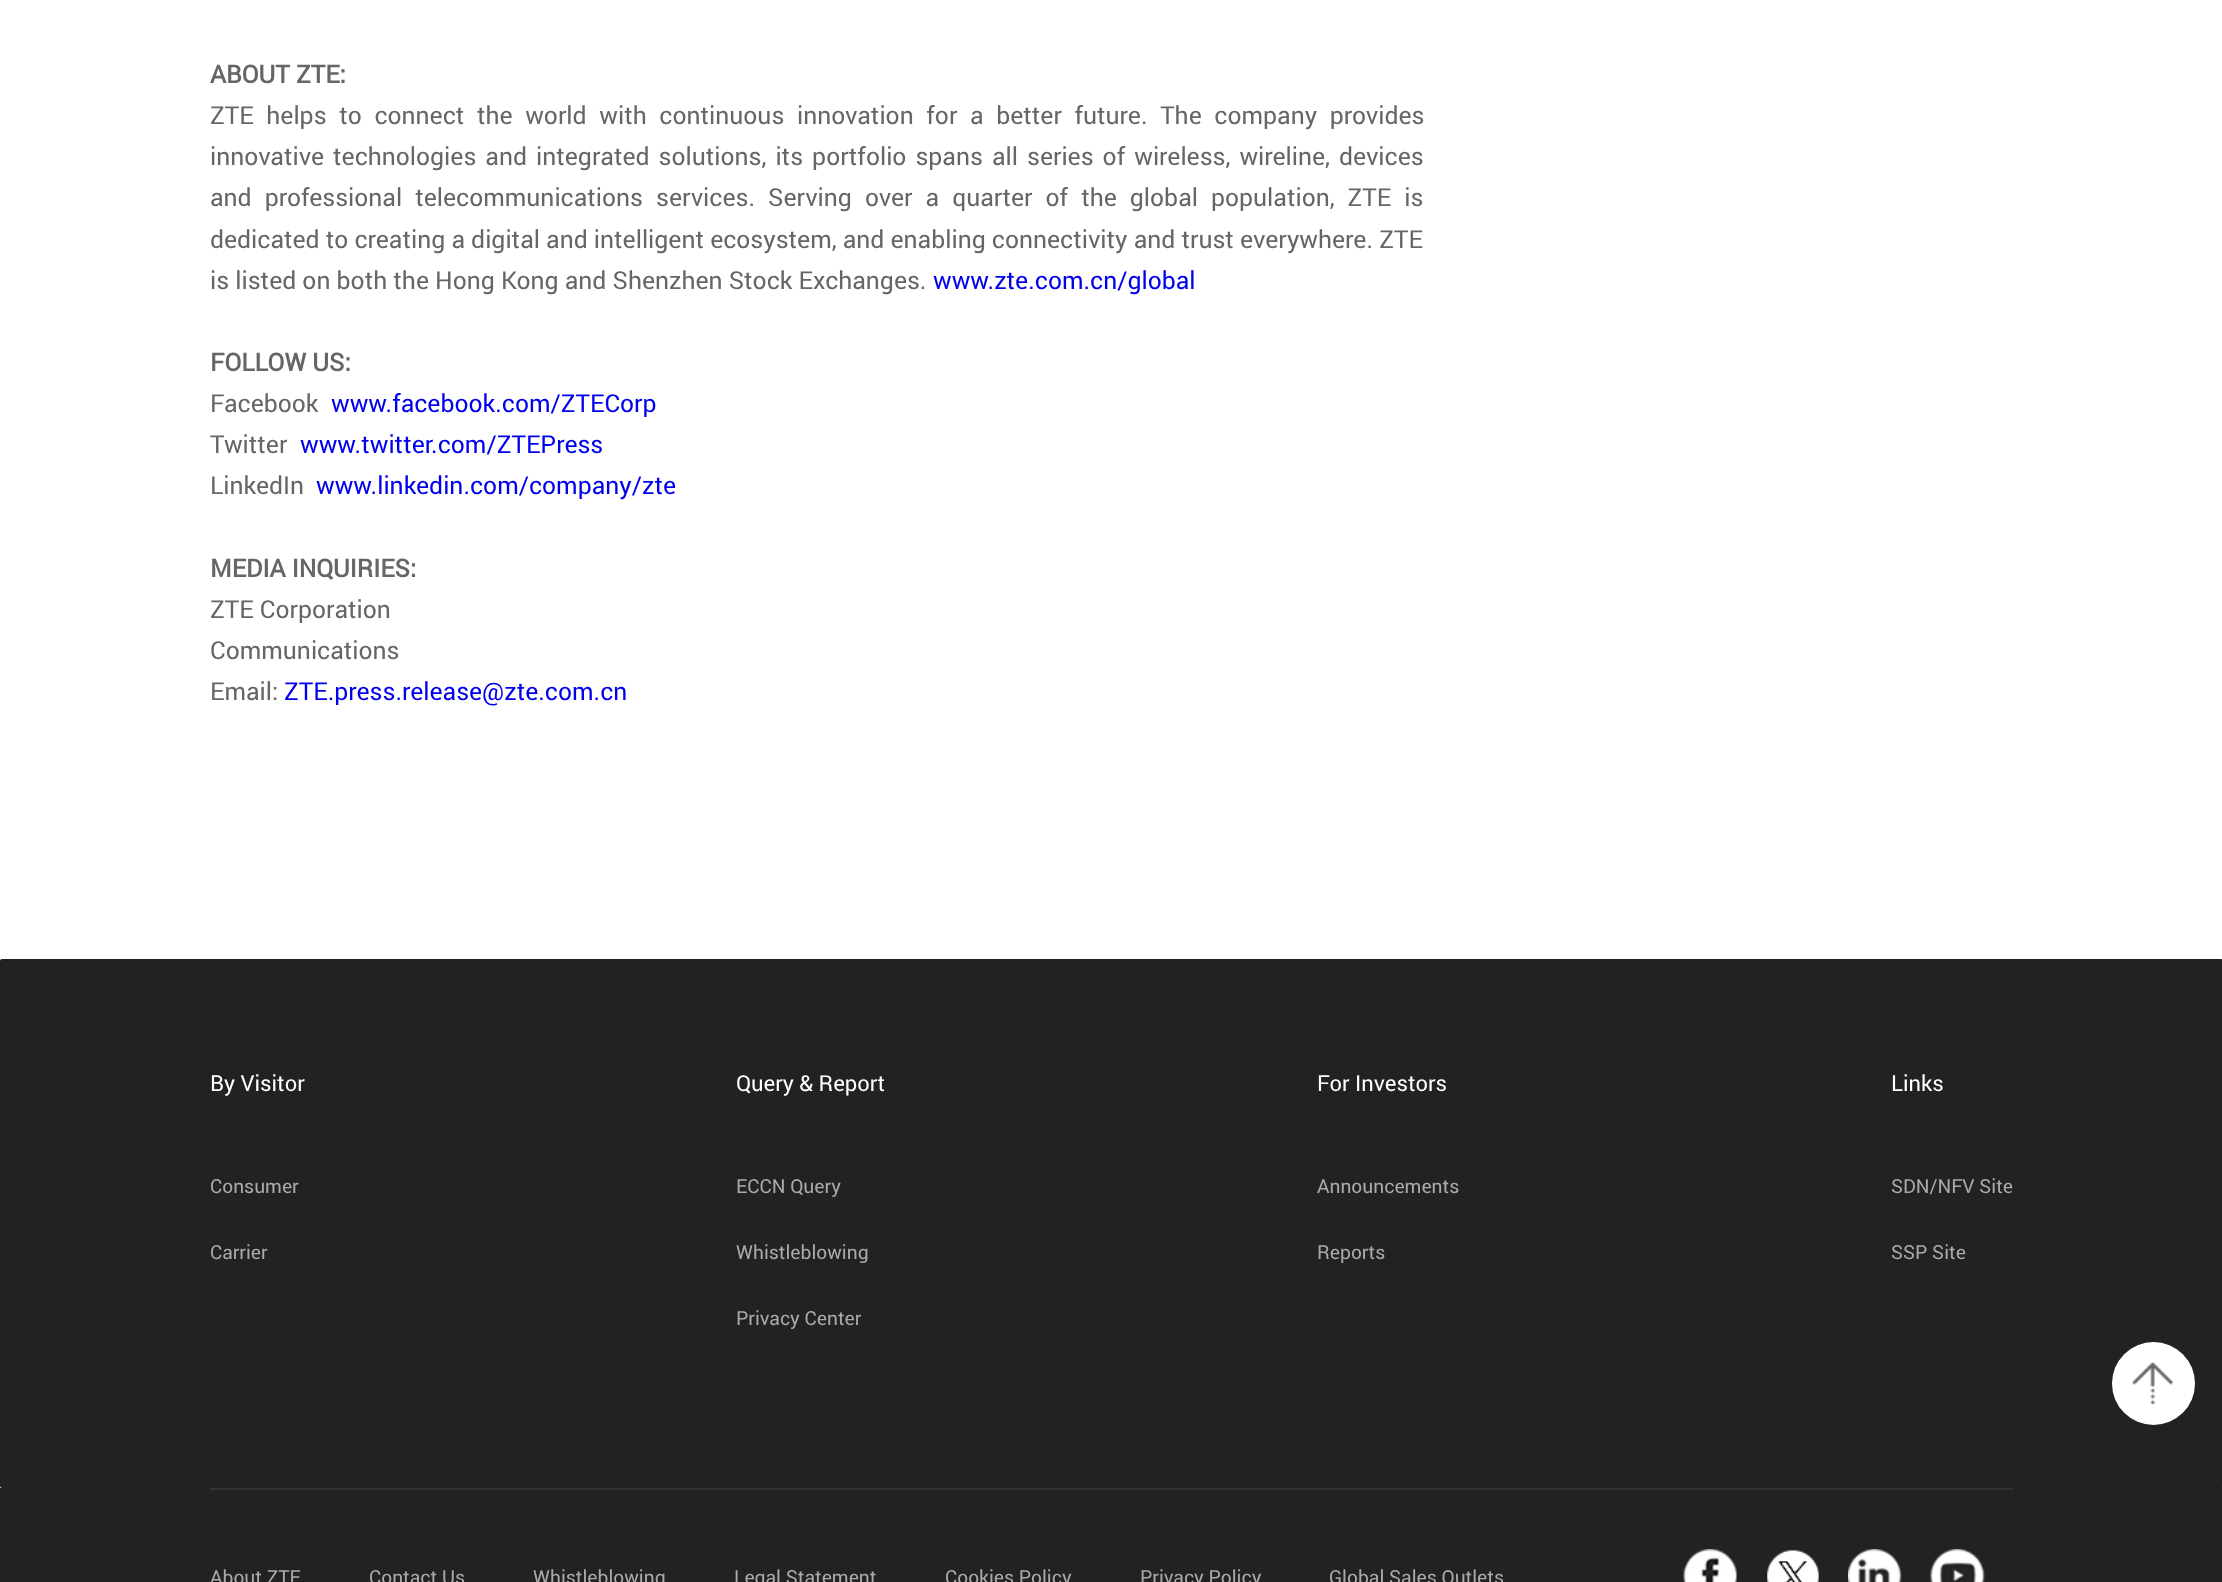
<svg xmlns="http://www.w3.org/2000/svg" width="2222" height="1582">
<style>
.a{font:bold 24.7px Roboto;fill:#666}
.b{font:24.7px Roboto;fill:#666}
.c{font:24.7px Roboto;fill:#00e}
.d{font:22px Roboto;fill:#fff}
.e{font:19.25px Roboto;fill:#aaa}
</style>
<rect width="100%" height="100%" fill="#fff"/>
<rect fill="#222" y="959" width="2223" height="529" rx="2"/>
<circle fill="#fff" cx="2153.5" cy="1383.5" r="41.5"/>
<image href="1.png" x="2132" y="1362" width="41" height="43"/>
<path fill="#222" d="M0 1488h2222v94H0z"/>
<path fill="#333" d="M210 1488h1803v2H210z"/>
<image href="2.png" x="1683" y="1549" width="54" height="33"/>
<image href="3.png" x="1767" y="1550" width="52" height="32"/>
<image href="4.png" x="1848" y="1549" width="54" height="33"/>
<image href="5.png" x="1930" y="1549" width="55" height="33"/>
<text class="a" x="210" y="83">ABOUT ZTE:</text>
<text class="b" x="210" y="124" word-spacing="6.5">ZTE helps to connect the world with continuous innovation for a better future. The company provides</text>
<text class="b" x="210" y="165" word-spacing="2.9">innovative technologies and integrated solutions, its portfolio spans all series of wireless, wireline, devices</text>
<text class="b" x="210" y="206" word-spacing="6.9">and professional telecommunications services. Serving over a quarter of the global population, ZTE is</text>
<text class="b" x="210" y="248">dedicated to creating a digital and intelligent ecosystem, and enabling connectivity and trust everywhere. ZTE</text>
<text class="b" x="210" y="289">is listed on both the Hong Kong and Shenzhen Stock Exchanges.</text>
<text class="c" x="933" y="289">www.zte.com.cn/global</text>
<text class="a" x="210" y="371">FOLLOW US:</text>
<text class="b" x="210" y="412">Facebook</text>
<text class="c" x="331" y="412">www.facebook.com/ZTECorp</text>
<text class="b" x="210" y="453">Twitter</text>
<text class="c" x="300" y="453">www.twitter.com/ZTEPress</text>
<text class="b" x="210" y="494">LinkedIn</text>
<text class="c" x="316" y="494">www.linkedin.com/company/zte</text>
<text class="a" x="210" y="577">MEDIA INQUIRIES:</text>
<text class="b" x="210" y="618">ZTE Corporation</text>
<text class="b" x="210" y="659">Communications</text>
<text class="b" x="210" y="700">Email:</text>
<text class="c" x="284" y="700">ZTE.press.release@zte.com.cn</text>
<text class="d" x="210" y="1091">By Visitor</text>
<text class="e" x="210" y="1193">Consumer</text>
<text class="e" x="210" y="1259">Carrier</text>
<text class="d" x="736" y="1091">Query &amp; Report</text>
<text class="e" x="736" y="1193">ECCN Query</text>
<text class="e" x="736" y="1259">Whistleblowing</text>
<text class="e" x="736" y="1325">Privacy Center</text>
<text class="d" x="1317" y="1091">For Investors</text>
<text class="e" x="1317" y="1193">Announcements</text>
<text class="e" x="1317" y="1259">Reports</text>
<text class="d" x="1891" y="1091">Links</text>
<text class="e" x="1891" y="1193">SDN/NFV Site</text>
<text class="e" x="1891" y="1259">SSP Site</text>
<text class="e" x="210" y="1584">About ZTE</text>
<text class="e" x="369" y="1584">Contact Us</text>
<text class="e" x="533" y="1584">Whistleblowing</text>
<text class="e" x="734" y="1584">Legal Statement</text>
<text class="e" x="945" y="1584">Cookies Policy</text>
<text class="e" x="1140" y="1584">Privacy Policy</text>
<text class="e" x="1329" y="1584">Global Sales Outlets</text>
</svg>
